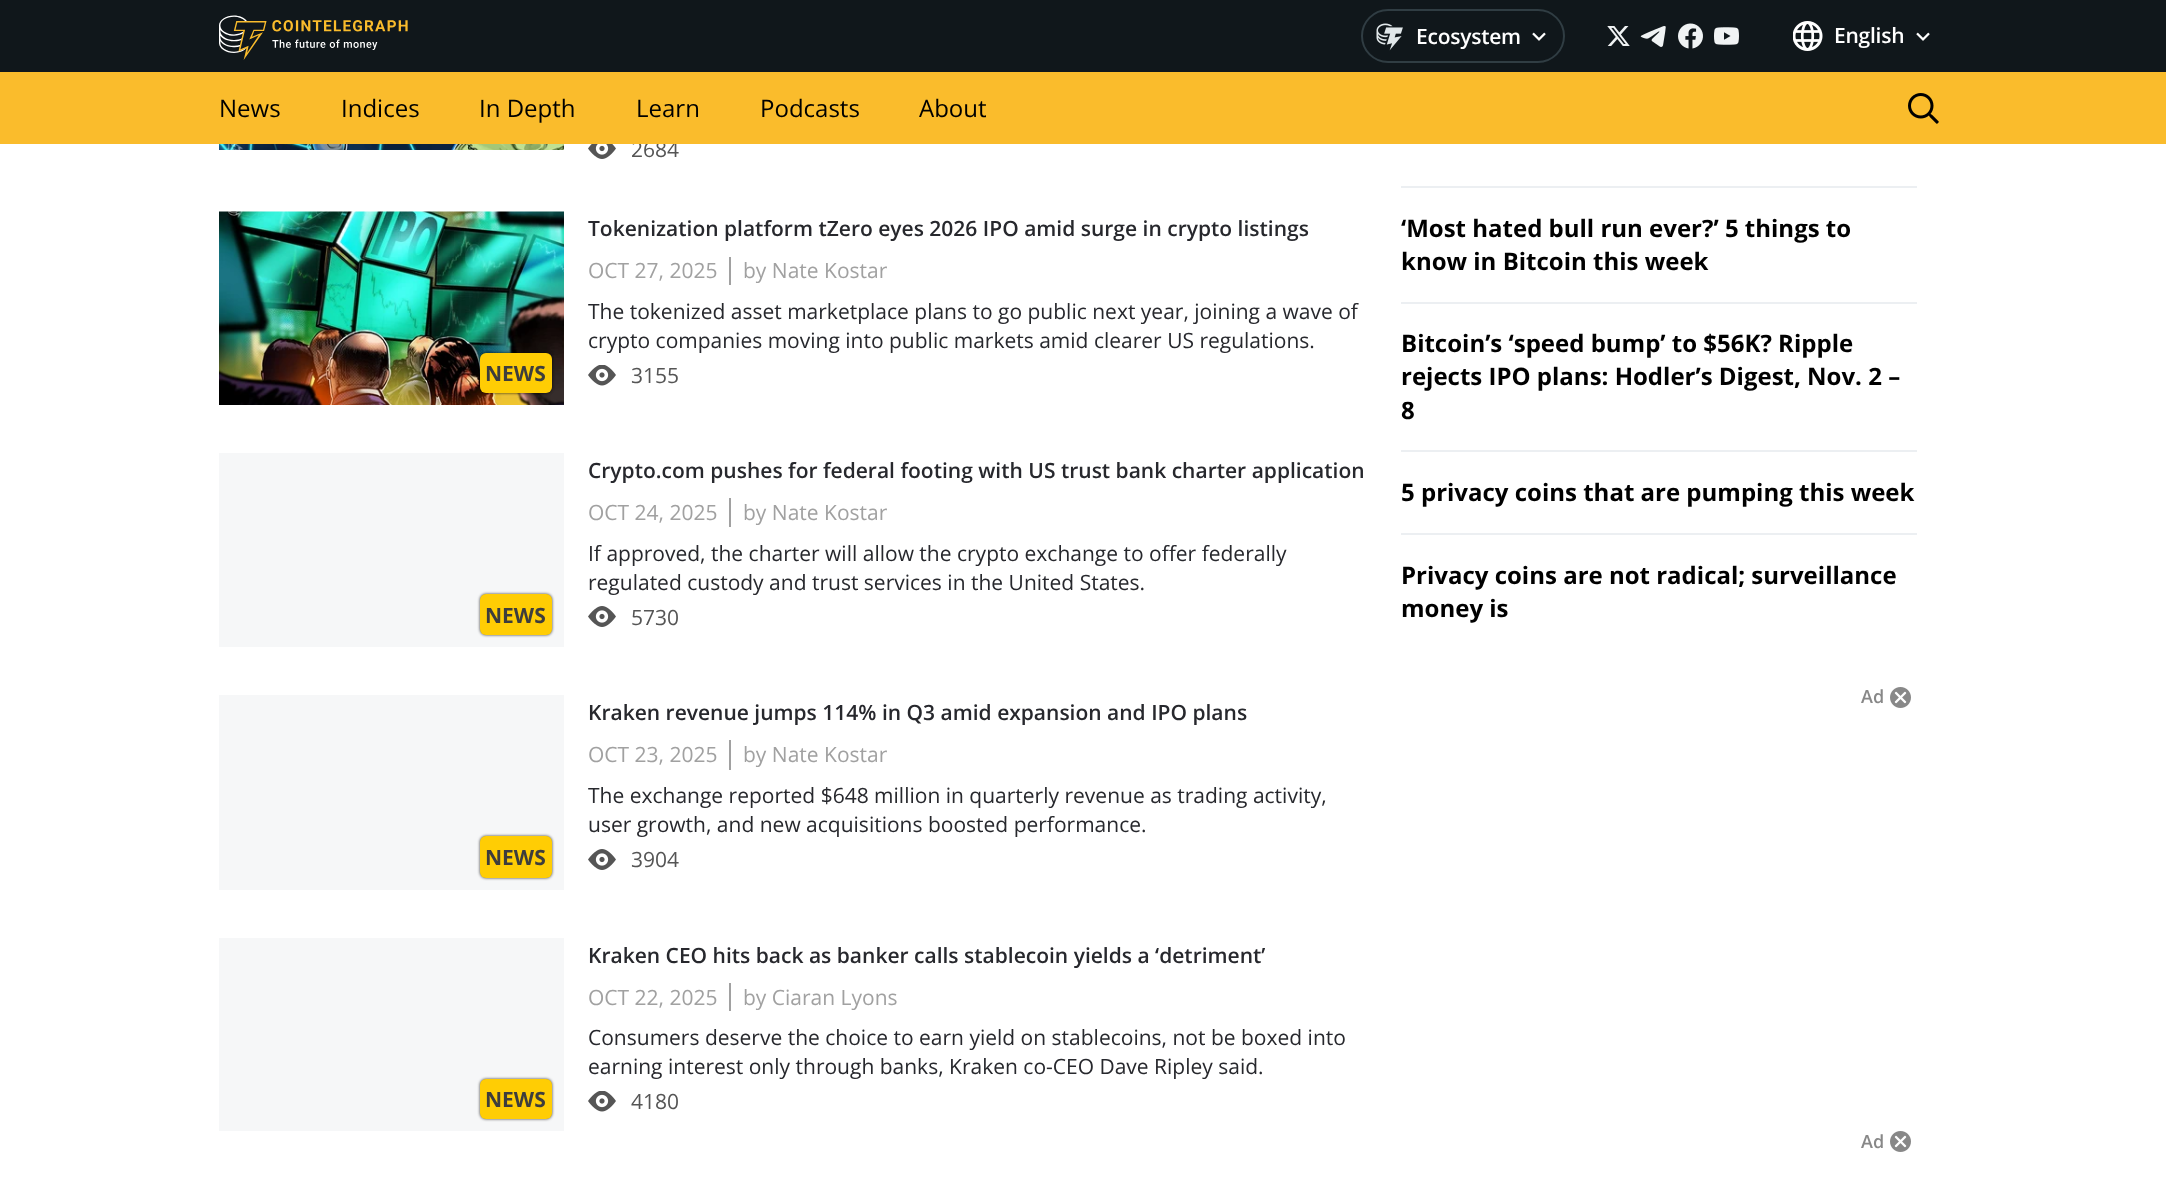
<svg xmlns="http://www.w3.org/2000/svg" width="2166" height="1178">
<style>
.a{font:600 21px Open Sans;letter-spacing:-0.25px;fill:#fff}
.b{font:21px Open Sans;fill:#555}
.c{font:24px Open Sans;fill:#000}
.d{font:bold 21px Open Sans;fill:#3d3d3d}
.e{font:600 21px Open Sans;fill:#27282d}
.f{font:21px Open Sans;fill:#a1a1a1}
.g{font:21px Open Sans;fill:#27282d}
.h{font:bold 24px Open Sans;fill:#000}
.i{font:600 18px Open Sans;fill:#888}
</style>
<rect width="100%" height="100%" fill="#fff"/>
<path fill="#10171b" d="M0 0h2166v72H0z"/>
<image href="1.png" x="219" y="15" width="189" height="45"/>
<rect fill="none" stroke="#303d43" stroke-width="2" x="1362" y="10" width="202" height="52" rx="26"/>
<image href="2.png" x="1376" y="23" width="27" height="28"/>
<image href="3.png" x="1532" y="32" width="14" height="9"/>
<image href="4.png" x="1607" y="26" width="23" height="20"/>
<image href="5.png" x="1640" y="26" width="26" height="21"/>
<image href="6.png" x="1678" y="23" width="25" height="26"/>
<image href="7.png" x="1714" y="27" width="25" height="18"/>
<image href="8.png" x="1793" y="21" width="30" height="30"/>
<image href="9.png" x="1916" y="32" width="14" height="9"/>
<image href="11.png" x="219" y="144" width="345" height="6"/>
<image href="12.png" x="588" y="144" width="28" height="15"/>
<image href="13.png" x="219" y="211" width="345" height="194"/>
<rect fill="#000000bf" filter="blur(1.5px)" x="480" y="353" width="72" height="40" rx="6"/>
<rect fill="#ffcd04" x="480" y="353" width="72" height="40" rx="6"/>
<path fill="#a1a1a1" d="M729 257h2v28H729z"/>
<image href="14.png" x="588" y="365" width="28" height="21"/>
<path fill="#f6f7f8" d="M219 453h345v194H219z"/>
<rect fill="#000000bf" filter="blur(1.5px)" x="480" y="594" width="72" height="41" rx="6"/>
<rect fill="#ffcd04" x="480" y="594" width="72" height="41" rx="6"/>
<path fill="#a1a1a1" d="M729 498h2v29H729z"/>
<image href="15.png" x="588" y="606" width="28" height="21"/>
<path fill="#f6f7f8" d="M219 695h345v195H219z"/>
<rect fill="#000000bf" filter="blur(1.5px)" x="480" y="836" width="72" height="42" rx="6"/>
<rect fill="#ffcd04" x="480" y="836" width="72" height="42" rx="6"/>
<path fill="#a1a1a1" d="M729 740h2v30H729z"/>
<image href="15.png" x="588" y="849" width="28" height="21"/>
<path fill="#f6f7f8" d="M219 938h345v193H219z"/>
<rect fill="#000000bf" filter="blur(1.5px)" x="480" y="1079" width="72" height="40" rx="6"/>
<rect fill="#ffcd04" x="480" y="1079" width="72" height="40" rx="6"/>
<path fill="#a1a1a1" d="M729 983h2v28H729z"/>
<image href="14.png" x="588" y="1091" width="28" height="21"/>
<path fill="#eceff2" d="M1401 186h516v2H1401z"/>
<path fill="#eceff2" d="M1401 302h516v2H1401z"/>
<path fill="#eceff2" d="M1401 450h516v2H1401z"/>
<path fill="#eceff2" d="M1401 533h516v2H1401z"/>
<image href="16.png" x="1890" y="687" width="21" height="21"/>
<image href="16.png" x="1890" y="1131" width="21" height="21"/>
<text class="a" x="1416" y="44">Ecosystem</text>
<text class="a" x="1834" y="43">English</text>
<text class="b" x="631" y="157">2684</text>
<path fill="#fabc2c" d="M0 72h2166v72H0z"/>
<image href="10.png" x="1908" y="93" width="31" height="31"/>
<text class="c" x="919" y="117">About</text>
<text class="c" x="760" y="117">Podcasts</text>
<text class="c" x="636" y="117">Learn</text>
<text class="c" x="479" y="117">In Depth</text>
<text class="c" x="341" y="117">Indices</text>
<text class="c" x="219" y="117">News</text>
<text class="d" x="485" y="381">NEWS</text>
<text class="e" x="588" y="236">Tokenization platform tZero eyes 2026 IPO amid surge in crypto listings</text>
<text class="f" x="588" y="278">OCT 27, 2025</text>
<text class="f" x="743" y="278">by Nate Kostar</text>
<text class="g" x="588" y="319">The tokenized asset marketplace plans to go public next year, joining a wave of</text>
<text class="g" x="588" y="348">crypto companies moving into public markets amid clearer US regulations.</text>
<text class="b" x="631" y="383">3155</text>
<text class="d" x="485" y="623">NEWS</text>
<text class="e" x="588" y="478">Crypto.com pushes for federal footing with US trust bank charter application</text>
<text class="f" x="588" y="520">OCT 24, 2025</text>
<text class="f" x="743" y="520">by Nate Kostar</text>
<text class="g" x="588" y="561">If approved, the charter will allow the crypto exchange to offer federally</text>
<text class="g" x="588" y="590">regulated custody and trust services in the United States.</text>
<text class="b" x="631" y="625">5730</text>
<text class="d" x="485" y="865">NEWS</text>
<text class="e" x="588" y="720">Kraken revenue jumps 114% in Q3 amid expansion and IPO plans</text>
<text class="f" x="588" y="762">OCT 23, 2025</text>
<text class="f" x="743" y="762">by Nate Kostar</text>
<text class="g" x="588" y="803">The exchange reported $648 million in quarterly revenue as trading activity,</text>
<text class="g" x="588" y="832">user growth, and new acquisitions boosted performance.</text>
<text class="b" x="631" y="867">3904</text>
<text class="d" x="485" y="1107">NEWS</text>
<text class="e" x="588" y="963">Kraken CEO hits back as banker calls stablecoin yields a ‘detriment’</text>
<text class="f" x="588" y="1005">OCT 22, 2025</text>
<text class="f" x="743" y="1005">by Ciaran Lyons</text>
<text class="g" x="588" y="1045">Consumers deserve the choice to earn yield on stablecoins, not be boxed into</text>
<text class="g" x="588" y="1074">earning interest only through banks, Kraken co-CEO Dave Ripley said.</text>
<text class="b" x="631" y="1109">4180</text>
<text class="h" x="1401" y="237">‘Most hated bull run ever?’ 5 things to</text>
<text class="h" x="1401" y="270">know in Bitcoin this week</text>
<text class="h" x="1401" y="352">Bitcoin’s ‘speed bump’ to $56K? Ripple</text>
<text class="h" x="1401" y="385">rejects IPO plans: Hodler’s Digest, Nov. 2 –</text>
<text class="h" x="1401" y="419">8</text>
<text class="h" x="1401" y="501">5 privacy coins that are pumping this week</text>
<text class="h" x="1401" y="584">Privacy coins are not radical; surveillance</text>
<text class="h" x="1401" y="617">money is</text>
<text class="i" x="1861" y="703">Ad</text>
<text class="i" x="1861" y="1148">Ad</text>
</svg>
